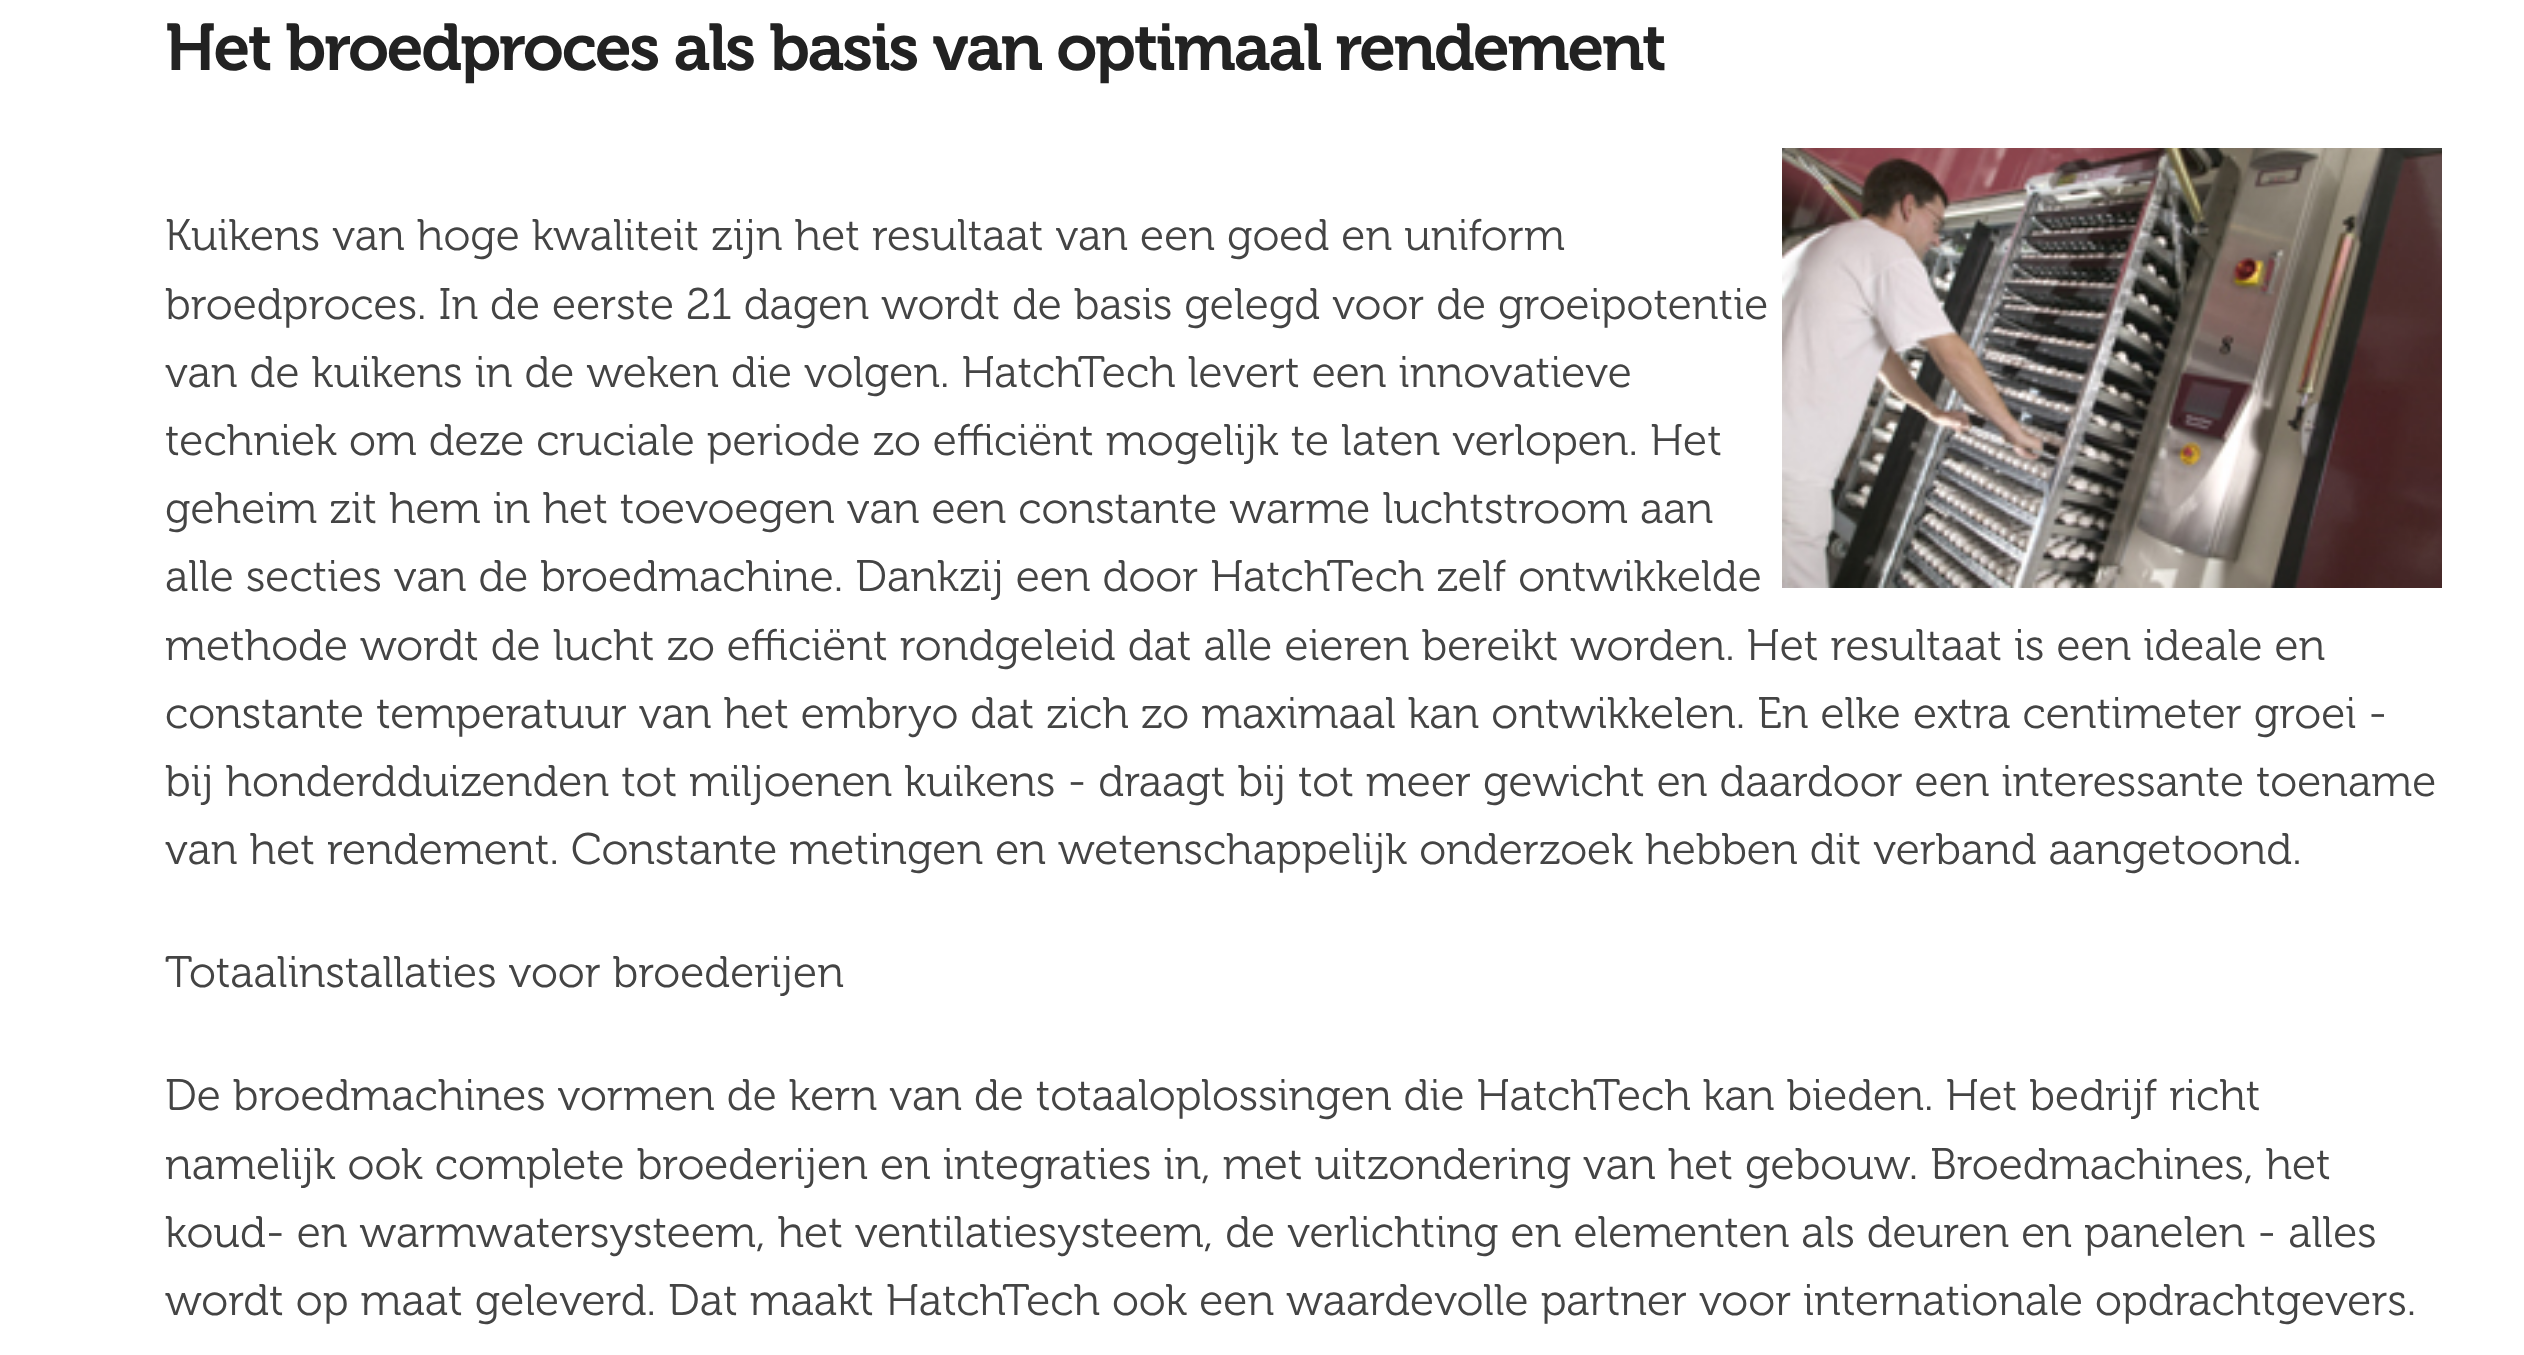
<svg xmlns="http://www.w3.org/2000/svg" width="2524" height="1355">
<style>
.a{font:600 66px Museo;letter-spacing:-2.2px;fill:#222}
.b{font:300 44px Museo;fill:#444}
</style>
<rect width="100%" height="100%" fill="#fff"/>
<image href="1.png" x="1782" y="148" width="660" height="440"/>
<text class="a" x="165" y="70">Het broedproces als basis van optimaal rendement</text>
<text class="b" x="165" y="250">Kuikens van hoge kwaliteit zijn het resultaat van een goed en uniform</text>
<text class="b" x="165" y="319">broedproces. In de eerste 21 dagen wordt de basis gelegd voor de groeipotentie</text>
<text class="b" x="165" y="387">van de kuikens in de weken die volgen. HatchTech levert een innovatieve</text>
<text class="b" x="165" y="455">techniek om deze cruciale periode zo efficiënt mogelijk te laten verlopen. Het</text>
<text class="b" x="165" y="523">geheim zit hem in het toevoegen van een constante warme luchtstroom aan</text>
<text class="b" x="165" y="591">alle secties van de broedmachine. Dankzij een door HatchTech zelf ontwikkelde</text>
<text class="b" x="165" y="660">methode wordt de lucht zo efficiënt rondgeleid dat alle eieren bereikt worden. Het resultaat is een ideale en</text>
<text class="b" x="165" y="728">constante temperatuur van het embryo dat zich zo maximaal kan ontwikkelen. En elke extra centimeter groei -</text>
<text class="b" x="165" y="796">bij honderdduizenden tot miljoenen kuikens - draagt bij tot meer gewicht en daardoor een interessante toename</text>
<text class="b" x="165" y="864">van het rendement. Constante metingen en wetenschappelijk onderzoek hebben dit verband aangetoond.</text>
<text class="b" x="165" y="987">Totaalinstallaties voor broederijen</text>
<text class="b" x="165" y="1110">De broedmachines vormen de kern van de totaaloplossingen die HatchTech kan bieden. Het bedrijf richt</text>
<text class="b" x="165" y="1179">namelijk ook complete broederijen en integraties in, met uitzondering van het gebouw. Broedmachines, het</text>
<text class="b" x="165" y="1247">koud- en warmwatersysteem, het ventilatiesysteem, de verlichting en elementen als deuren en panelen - alles</text>
<text class="b" x="165" y="1315">wordt op maat geleverd. Dat maakt HatchTech ook een waardevolle partner voor internationale opdrachtgevers.</text>
</svg>
